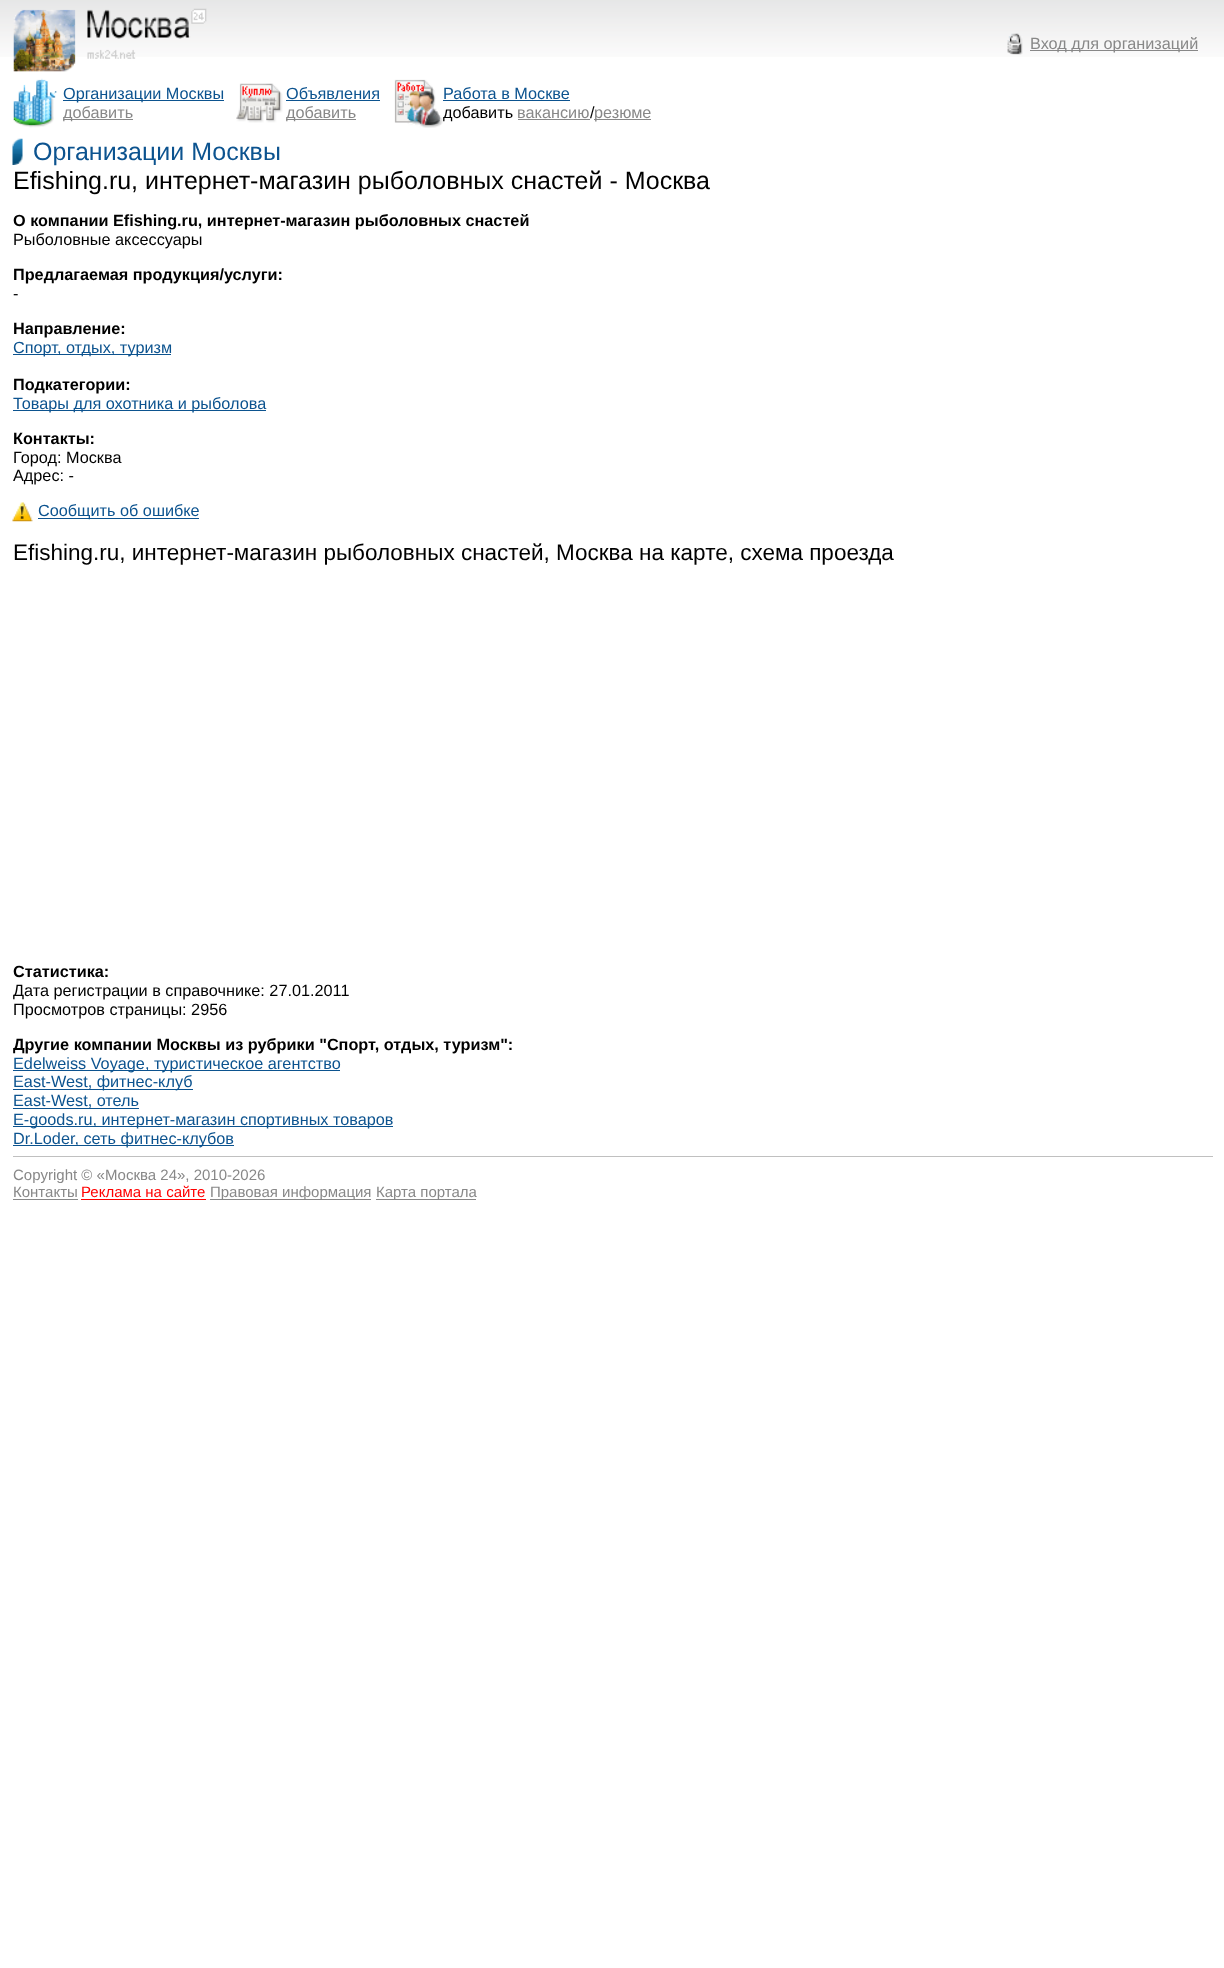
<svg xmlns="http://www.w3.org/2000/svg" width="1224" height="1968">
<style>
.a{font:16.25px Liberation Sans;fill:#888}
.b{font:16.25px Liberation Sans;fill:#0c538f}
.c{font:16.25px Liberation Sans;fill:#000}
.d{font:25px Liberation Sans;fill:#0c538f}
.e{font:25px Liberation Sans;fill:#000}
.f{font:bold 16.25px Liberation Sans;fill:#000}
.g{font:22.5px Liberation Sans;fill:#000}
.h{font:15px Liberation Sans;fill:#888}
.i{font:15px Liberation Sans;fill:#f00}
</style>
<rect width="100%" height="100%" fill="#fff"/>
<image href="1.png" x="0" y="0" width="1224" height="57"/>
<image href="2.png" x="13" y="8" width="194" height="64"/>
<image href="3.png" x="1007" y="33" width="16" height="22"/>
<path fill="#888" d="M1030 50h168v1H1030z"/>
<image href="4.png" x="13" y="78" width="44" height="50"/>
<path fill="#0c538f" d="M63 100h161v1H63z"/>
<path fill="#888" d="M63 119h70v1H63z"/>
<image href="5.png" x="236" y="83" width="47" height="40"/>
<path fill="#0c538f" d="M286 100h94v1H286z"/>
<path fill="#888" d="M286 119h70v1H286z"/>
<image href="6.png" x="394" y="79" width="49" height="49"/>
<path fill="#0c538f" d="M443 100h127v1H443z"/>
<path fill="#888" d="M518 119h72v1H518z"/>
<path fill="#888" d="M594 119h57v1H594z"/>
<image href="7.png" x="12" y="138" width="11" height="27"/>
<path fill="#0c538f" d="M13 354h158v1H13z"/>
<path fill="#0c538f" d="M13 410h253v1H13z"/>
<image href="8.png" x="12" y="502" width="21" height="20"/>
<path fill="#0c538f" d="M38 518h161v1H38z"/>
<path fill="#0c538f" d="M13 1070h327v1H13z"/>
<path fill="#0c538f" d="M13 1089h180v1H13z"/>
<path fill="#0c538f" d="M13 1108h126v1H13z"/>
<path fill="#0c538f" d="M13 1126h380v1H13z"/>
<path fill="#0c538f" d="M13 1145h221v1H13z"/>
<path fill="#c0c0c0" d="M13 1156h1200v1H13z"/>
<path fill="#888" d="M13 1199h65v1H13z"/>
<path fill="#f00" d="M81 1199h125v1H81z"/>
<path fill="#888" d="M210 1199h161v1H210z"/>
<path fill="#888" d="M376 1199h100v1H376z"/>
<text class="a" x="1030" y="49">Вход для организаций</text>
<text class="b" x="63" y="99">Организации Москвы</text>
<text class="a" x="63" y="118">добавить</text>
<text class="b" x="286" y="99">Объявления</text>
<text class="a" x="286" y="118">добавить</text>
<text class="b" x="443" y="99">Работа в Москве</text>
<text class="c" x="443" y="118">добавить</text>
<text class="a" x="517" y="118">вакансию</text>
<text class="c" x="590" y="118">/</text>
<text class="a" x="594" y="118">резюме</text>
<text class="d" x="33" y="160">Организации Москвы</text>
<text class="e" x="13" y="189">Efishing.ru, интернет-магазин рыболовных снастей - Москва</text>
<text class="f" x="13" y="226">О компании Efishing.ru, интернет-магазин рыболовных снастей</text>
<text class="c" x="13" y="245">Рыболовные аксессуары</text>
<text class="f" x="13" y="280">Предлагаемая продукция/услуги:</text>
<text class="c" x="13" y="299">-</text>
<text class="f" x="13" y="334">Направление:</text>
<text class="b" x="13" y="353">Спорт, отдых, туризм</text>
<text class="f" x="13" y="390">Подкатегории:</text>
<text class="b" x="13" y="409">Товары для охотника и рыболова</text>
<text class="f" x="13" y="444">Контакты:</text>
<text class="c" x="13" y="463">Город: Москва</text>
<text class="c" x="13" y="481">Адрес: -</text>
<text class="b" x="38" y="516">Сообщить об ошибке</text>
<text class="g" x="13" y="560">Efishing.ru, интернет-магазин рыболовных снастей, Москва на карте, схема проезда</text>
<text class="f" x="13" y="977">Статистика:</text>
<text class="c" x="13" y="996">Дата регистрации в справочнике: 27.01.2011</text>
<text class="c" x="13" y="1015">Просмотров страницы: 2956</text>
<text class="f" x="13" y="1050">Другие компании Москвы из рубрики "Спорт, отдых, туризм":</text>
<text class="b" x="13" y="1069">Edelweiss Voyage, туристическое агентство</text>
<text class="b" x="13" y="1087">East-West, фитнес-клуб</text>
<text class="b" x="13" y="1106">East-West, отель</text>
<text class="b" x="13" y="1125">E-goods.ru, интернет-магазин спортивных товаров</text>
<text class="b" x="13" y="1144">Dr.Loder, сеть фитнес-клубов</text>
<text class="h" x="13" y="1180">Copyright © «Москва 24», 2010-2026</text>
<text class="h" x="13" y="1197">Контакты</text>
<text class="i" x="81" y="1197">Реклама на сайте</text>
<text class="h" x="210" y="1197">Правовая информация</text>
<text class="h" x="376" y="1197">Карта портала</text>
</svg>
